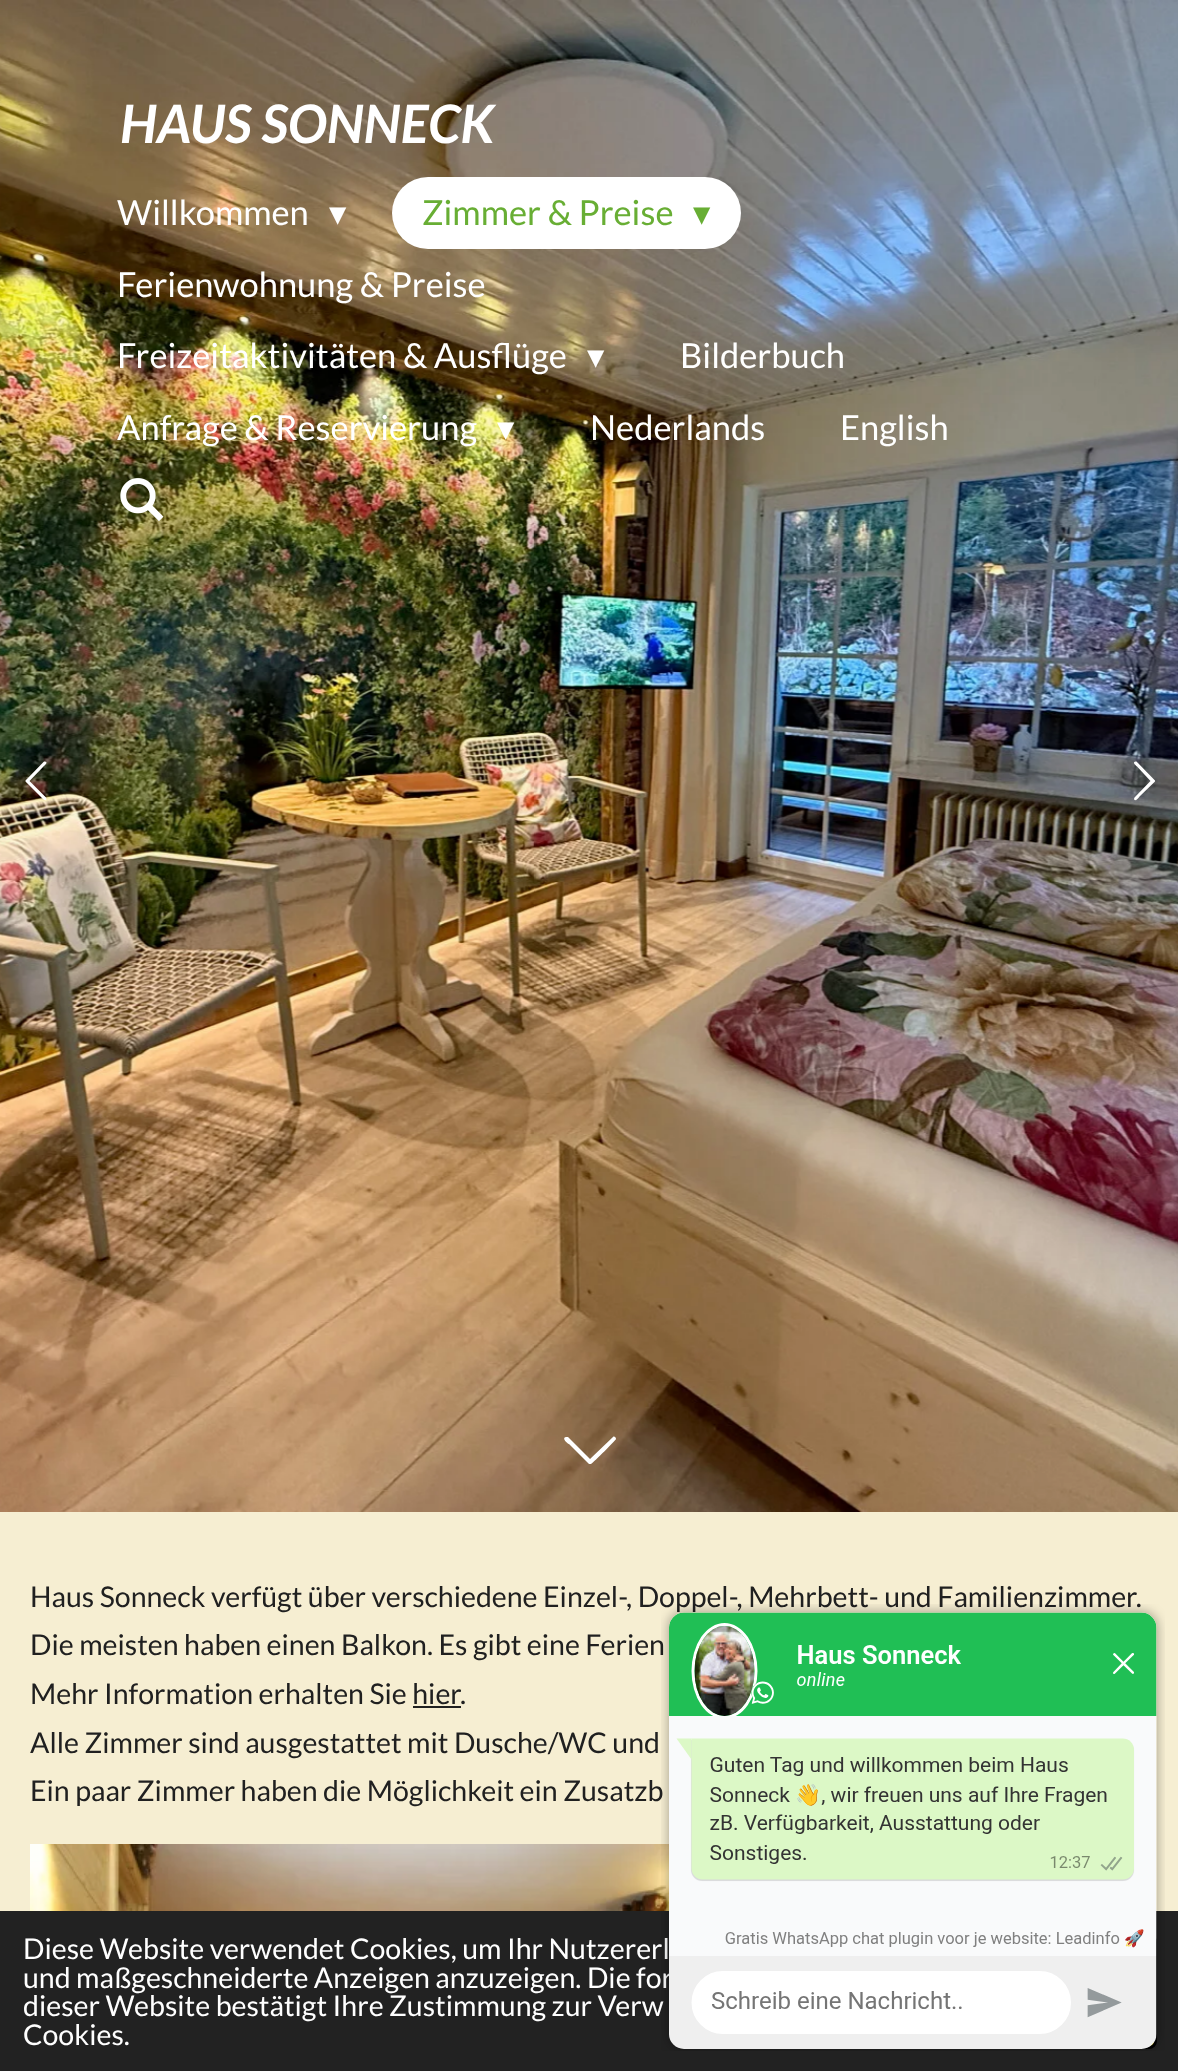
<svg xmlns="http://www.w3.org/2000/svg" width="1178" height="2071">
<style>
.a{font:italic bold 53px Lato;fill:#fff}
.b{font:34.5px Lato;fill:#fff}
.c{font:34.5px DejaVu Sans;fill:#fff}
.d{font:34.5px Lato;fill:#68ae34}
.e{font:34.5px DejaVu Sans;fill:#68ae34}
.f{font:28.5px Lato;fill:#202020}
.g{font:28.5px Lato;fill:#fff}
</style>
<rect width="100%" height="100%" fill="#f6eed2"/>
<image href="1.png" x="0" y="0" width="1178" height="1512"/>
<path fill="#fff" d="M46 797.5l.5 1.5c-1 3.5-5.5-2-6-2.5l-15-15v-1l.5-.5l18-18.5h1c4 1-1.5 4.5-2 5.5l-13.5 14z"/>
<path fill="#fff" d="M1134.5 797.5l16-16.5l-13-14c-1-1-6-4.5-2-5.5h1l18 18.5l.5 .5v1l-15.5 15c0 .5-4.5 6-5.5 2.5z"/>
<path fill="#fff" d="M568 1437l22 22l23-22c1-1 3 0 3 2c0 1-22 23-25 25h-2l-20-20c-1 0-8-6-3-7z"/>
<rect fill="#fff" x="392" y="177" width="349" height="72" rx="36"/>
<image href="2.png" x="120" y="478" width="44" height="44"/>
<path fill="#202020" d="M413 1706h48v2H413z"/>
<image href="3.png" x="30" y="1844" width="639" height="67"/>
<path fill="#222" d="M0 1911h1178v160H0z"/>
<rect fill="#f1d600" stroke="#000" stroke-width="3" x="949.5" y="1935.5" width="206" height="112" rx="6.5"/>
<text class="a" x="120" y="143">HAUS SONNECK</text>
<text class="b" x="117" y="225">Willkommen</text>
<text class="c" x="329" y="225">▾</text>
<text class="d" x="422" y="225">Zimmer &amp; Preise</text>
<text class="e" x="693" y="225">▾</text>
<text class="b" x="117" y="297">Ferienwohnung &amp; Preise</text>
<text class="b" x="117" y="368">Freizeitaktivitäten &amp; Ausflüge</text>
<text class="c" x="587" y="368">▾</text>
<text class="b" x="680" y="368">Bilderbuch</text>
<text class="b" x="117" y="440">Anfrage &amp; Reservierung</text>
<text class="c" x="497" y="440">▾</text>
<text class="b" x="590" y="440">Nederlands</text>
<text class="b" x="840" y="440">English</text>
<text class="f" x="30" y="1607">Haus Sonneck verfügt über verschiedene Einzel-, Doppel-, Mehrbett- und Familienzimmer.</text>
<text class="f" x="30" y="1655">Die meisten haben einen Balkon. Es gibt eine Ferien</text>
<text class="f" x="30" y="1704">Mehr Information erhalten Sie hier</text>
<text class="f" x="460" y="1704">.</text>
<text class="f" x="30" y="1753">Alle Zimmer sind ausgestattet mit Dusche/WC und</text>
<text class="f" x="30" y="1801">Ein paar Zimmer haben die Möglichkeit ein Zusatzb</text>
<text class="g" x="23" y="1959">Diese Website verwendet Cookies, um Ihr Nutzererl</text>
<text class="g" x="23" y="1988">und maßgeschneiderte Anzeigen anzuzeigen. Die for</text>
<text class="g" x="23" y="2016">dieser Website bestätigt Ihre Zustimmung zur Verw</text>
<text class="g" x="23" y="2045">Cookies.</text>
<image href="4.png" x="661" y="1604" width="504" height="447"/>
</svg>
